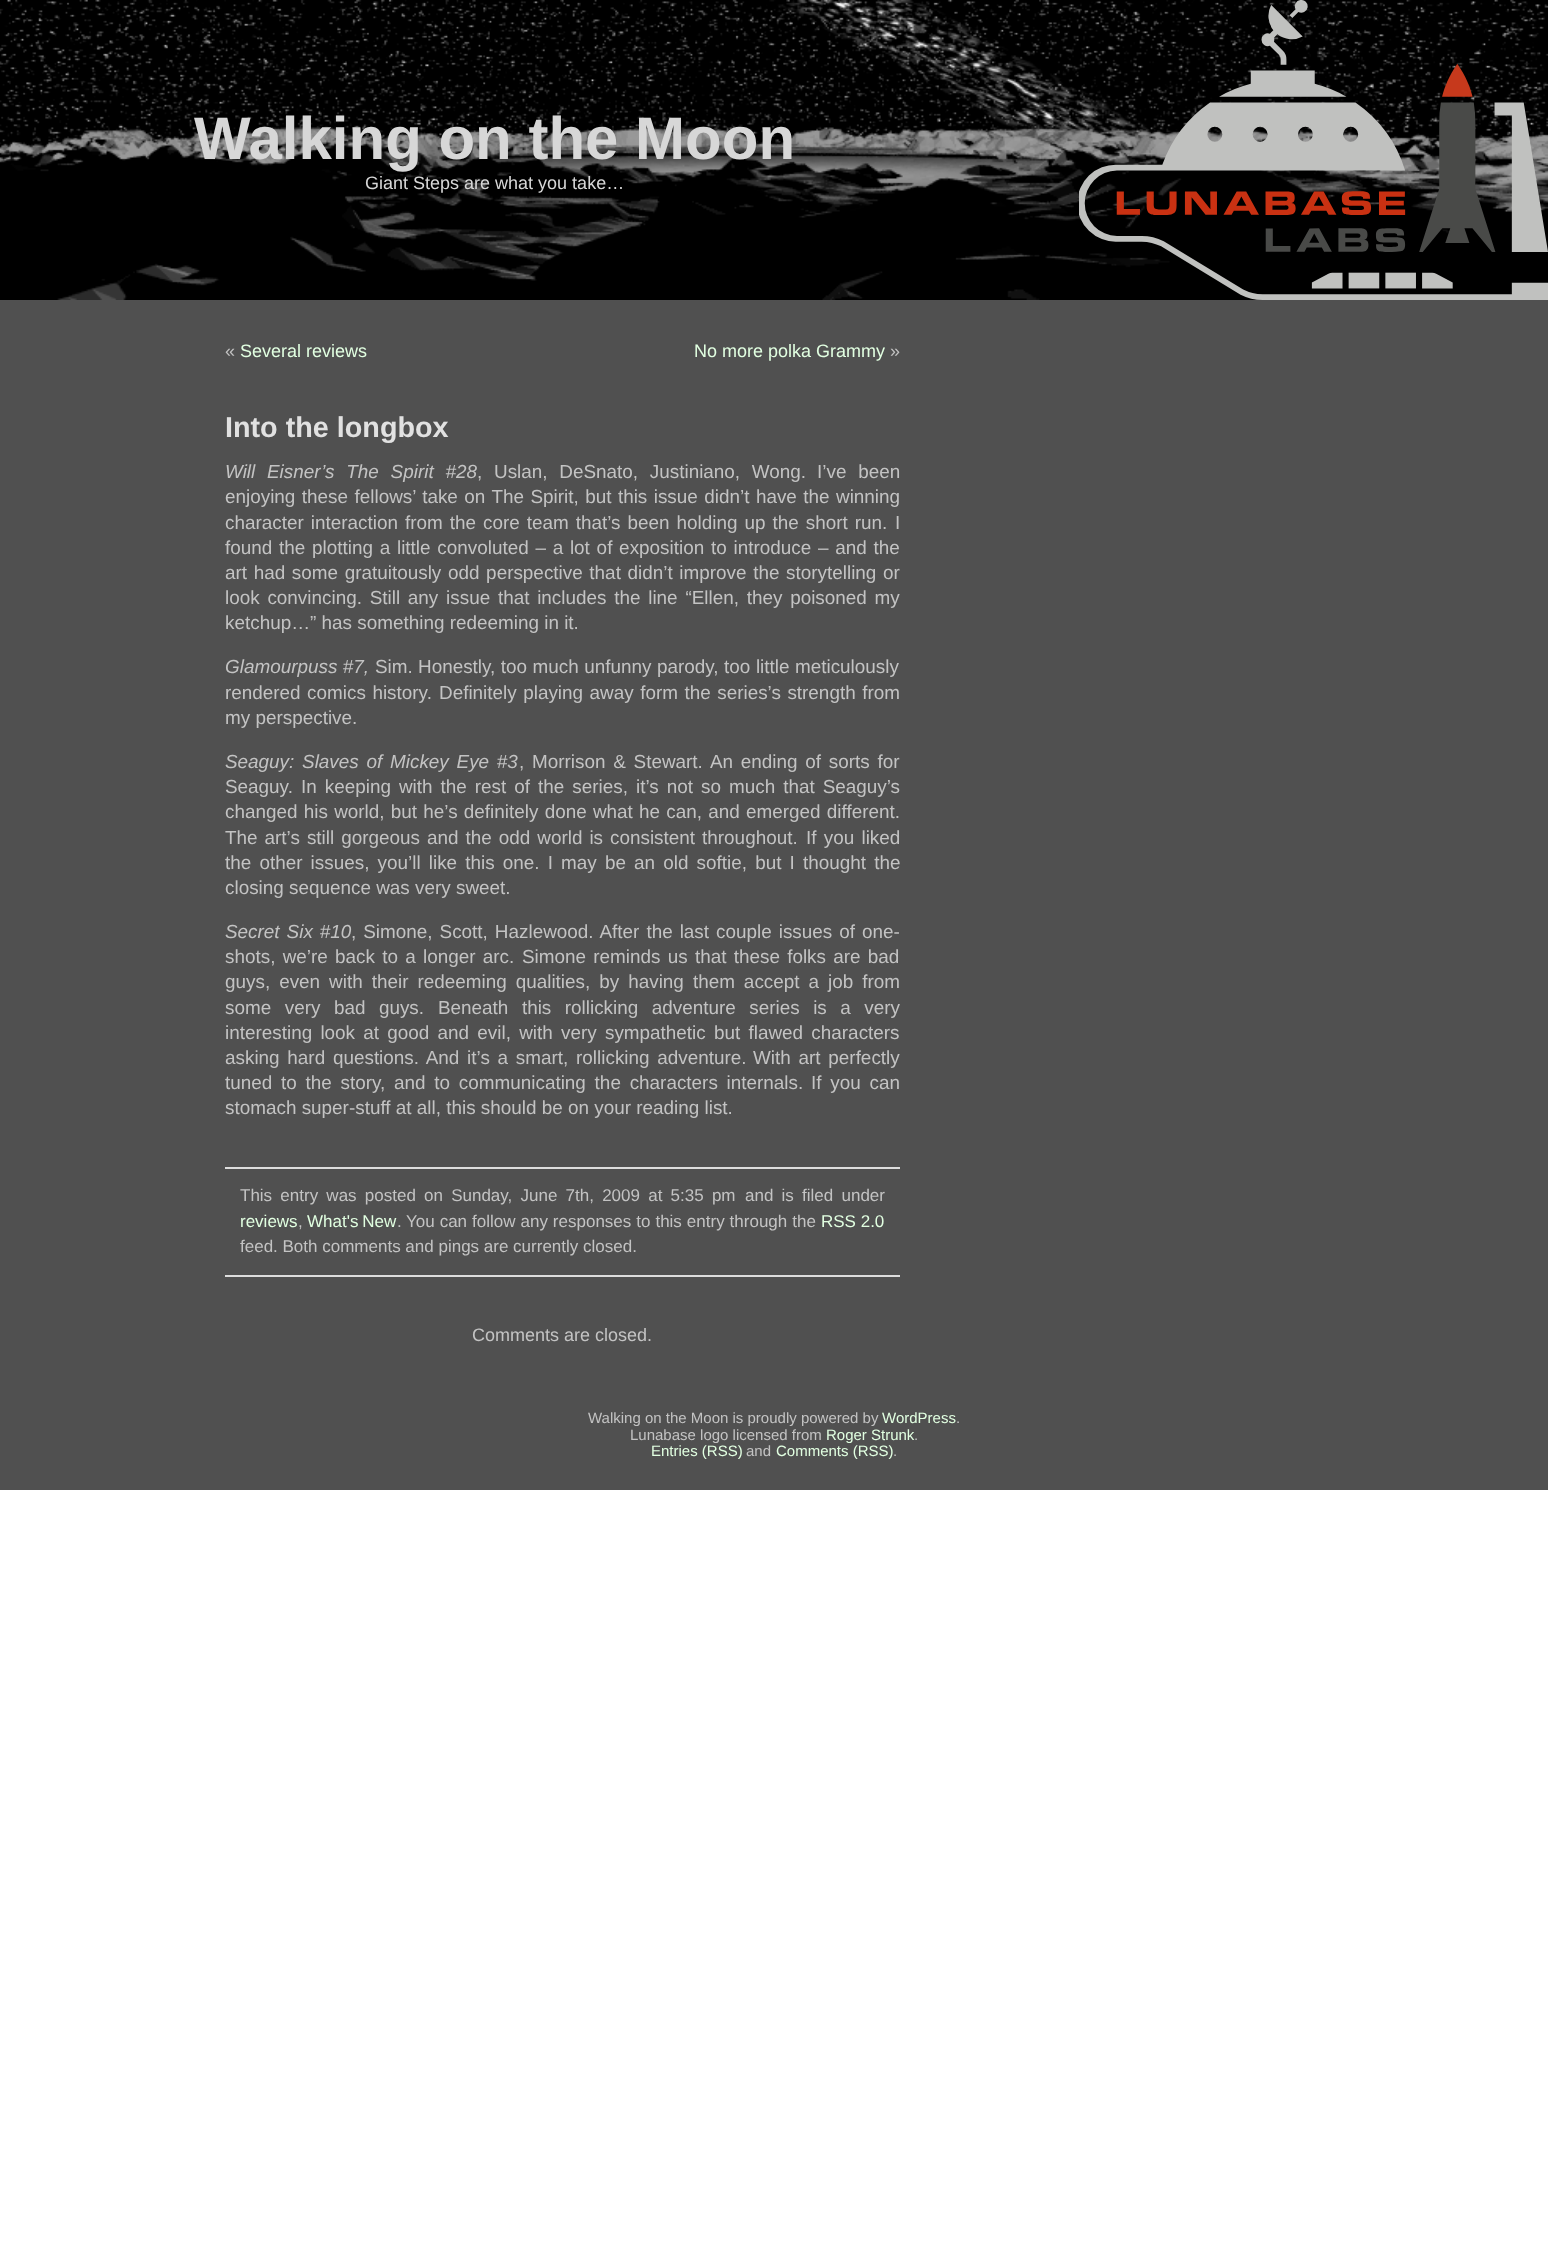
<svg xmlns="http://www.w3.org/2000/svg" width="1548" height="2251">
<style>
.a{font:bold 60px Liberation Sans;fill:#d7d7d7}
.b{font:18px Liberation Sans;fill:#d7d7d7}
.c{font:18px Liberation Sans;fill:#c3c3c3}
.d{font:18px Liberation Sans;fill:#e1ffe1}
.e{font:bold 28.75px Liberation Sans;fill:#e1e1e1}
.f{font:italic 18.9px Liberation Sans;fill:#c3c3c3}
.g{font:18.9px Liberation Sans;fill:#c3c3c3}
.h{font:17px Liberation Sans;fill:#c3c3c3}
.i{font:17px Liberation Sans;fill:#e1ffe1}
.j{font:15px Liberation Sans;fill:#c3c3c3}
.k{font:15px Liberation Sans;fill:#e1ffe1}
</style>
<rect width="100%" height="100%" fill="#fff"/>
<path fill="#505050" d="M0 300h1548v1190H0z"/>
<image href="1.png" x="0" y="0" width="1548" height="300"/>
<path fill="#ddd" d="M225 1167h675v2H225z"/>
<path fill="#ddd" d="M225 1275h675v2H225z"/>
<text class="a" x="194" y="159">Walking on the Moon</text>
<text class="b" x="365" y="189">Giant Steps are what you take…</text>
<text class="c" x="225" y="357">«</text>
<text class="d" x="240" y="357">Several reviews</text>
<text class="d" x="694" y="357">No more polka Grammy</text>
<text class="c" x="890" y="357">»</text>
<text class="e" x="225" y="437">Into the longbox</text>
<text class="f" x="225" y="478" word-spacing="6.5">Will Eisner’s The Spirit #28</text>
<text class="g" x="477" y="478" word-spacing="6.5">, Uslan, DeSnato, Justiniano, Wong.</text>
<text class="g" x="817" y="478" word-spacing="6.5">I’ve been</text>
<text class="g" x="225" y="503" word-spacing="1.2">enjoying these fellows’ take on The Spirit, but this issue didn’t have the winning</text>
<text class="g" x="225" y="529" word-spacing="1.75">character interaction from the core team that’s been holding up the short run.</text>
<text class="g" x="895" y="529">I</text>
<text class="g" x="225" y="554" word-spacing="1.5">found the plotting a little convoluted – a lot of exposition to introduce – and the</text>
<text class="g" x="225" y="579" word-spacing="1.4">art had some gratuitously odd perspective that didn’t improve the storytelling or</text>
<text class="g" x="225" y="604" word-spacing="2.5">look convincing. Still any issue that includes the line “Ellen, they poisoned my</text>
<text class="g" x="225" y="629">ketchup…” has something redeeming in it.</text>
<text class="f" x="225" y="673" word-spacing="0.25">Glamourpuss #7,</text>
<text class="g" x="375" y="673">Sim.</text>
<text class="g" x="418" y="673" word-spacing="0.25">Honestly, too much unfunny parody, too little meticulously</text>
<text class="g" x="225" y="699" word-spacing="1.25">rendered comics history.</text>
<text class="g" x="439" y="699" word-spacing="1.25">Definitely playing away form the series’s strength from</text>
<text class="g" x="225" y="724">my perspective.</text>
<text class="f" x="225" y="768" word-spacing="2.5">Seaguy: Slaves of Mickey Eye #3</text>
<text class="g" x="519" y="768" word-spacing="2.5">, Morrison &amp; Stewart.</text>
<text class="g" x="710" y="768" word-spacing="2.5">An ending of sorts for</text>
<text class="g" x="225" y="793">Seaguy.</text>
<text class="g" x="301" y="793" word-spacing="2.75">In keeping with the rest of the series,</text>
<text class="g" x="636" y="793" word-spacing="2.75">it’s not so much that Seaguy’s</text>
<text class="g" x="225" y="818" word-spacing="1">changed his world, but he’s definitely done what he can, and emerged different.</text>
<text class="g" x="225" y="844" word-spacing="1.75">The art’s still gorgeous and the odd world is consistent throughout.</text>
<text class="g" x="806" y="844" word-spacing="2">If you liked</text>
<text class="g" x="225" y="869" word-spacing="2.9">the other issues, you’ll like this one. I may be an old softie, but I thought the</text>
<text class="g" x="225" y="894">closing sequence was very sweet.</text>
<text class="f" x="225" y="938" word-spacing="1.75">Secret Six #10</text>
<text class="g" x="351" y="938" word-spacing="1.75">, Simone, Scott, Hazlewood. After the last couple issues of one-</text>
<text class="g" x="225" y="963" word-spacing="2">shots, we’re back to a longer arc.</text>
<text class="g" x="522" y="963" word-spacing="2">Simone reminds us that these folks are bad</text>
<text class="g" x="225" y="988" word-spacing="3.75">guys, even with their redeeming qualities, by having them accept a job from</text>
<text class="g" x="225" y="1014" word-spacing="8.25">some very bad guys.</text>
<text class="g" x="438" y="1014" word-spacing="8.25">Beneath this rollicking adventure series is a very</text>
<text class="g" x="225" y="1039" word-spacing="3">interesting look at good and evil, with very sympathetic but flawed characters</text>
<text class="g" x="225" y="1064" word-spacing="2.5">asking hard questions. And it’s a smart, rollicking adventure.</text>
<text class="g" x="753" y="1064" word-spacing="2.5">With art perfectly</text>
<text class="g" x="225" y="1089" word-spacing="3.5">tuned to the story, and to communicating the characters internals.</text>
<text class="g" x="811" y="1089" word-spacing="3.5">If you can</text>
<text class="g" x="225" y="1114">stomach super-stuff at all, this should be on your reading list.</text>
<text class="h" x="240" y="1201" word-spacing="3.5">This entry was posted</text>
<text class="h" x="424" y="1201" word-spacing="3.5">on Sunday, June 7th, 2009 at 5:35 pm</text>
<text class="h" x="745" y="1201" word-spacing="3.5">and is filed under</text>
<text class="i" x="240" y="1227">reviews</text>
<text class="h" x="298" y="1227">,</text>
<text class="i" x="307" y="1227" word-spacing="-1">What's New</text>
<text class="h" x="397" y="1227">.</text>
<text class="h" x="406" y="1227" word-spacing="0.25">You can follow any responses to this entry through the</text>
<text class="i" x="821" y="1227">RSS 2.0</text>
<text class="h" x="240" y="1252">feed. Both comments and pings are currently closed.</text>
<text class="c" x="472" y="1341">Comments are closed.</text>
<text class="j" x="588" y="1423">Walking on the Moon is proudly powered by</text>
<text class="k" x="882" y="1423">WordPress</text>
<text class="j" x="956" y="1423">.</text>
<text class="j" x="630" y="1440">Lunabase logo licensed from</text>
<text class="k" x="826" y="1440">Roger Strunk</text>
<text class="j" x="914" y="1440">.</text>
<text class="k" x="651" y="1456">Entries (RSS)</text>
<text class="j" x="746" y="1456">and</text>
<text class="k" x="776" y="1456">Comments (RSS)</text>
<text class="j" x="893" y="1456">.</text>
</svg>
